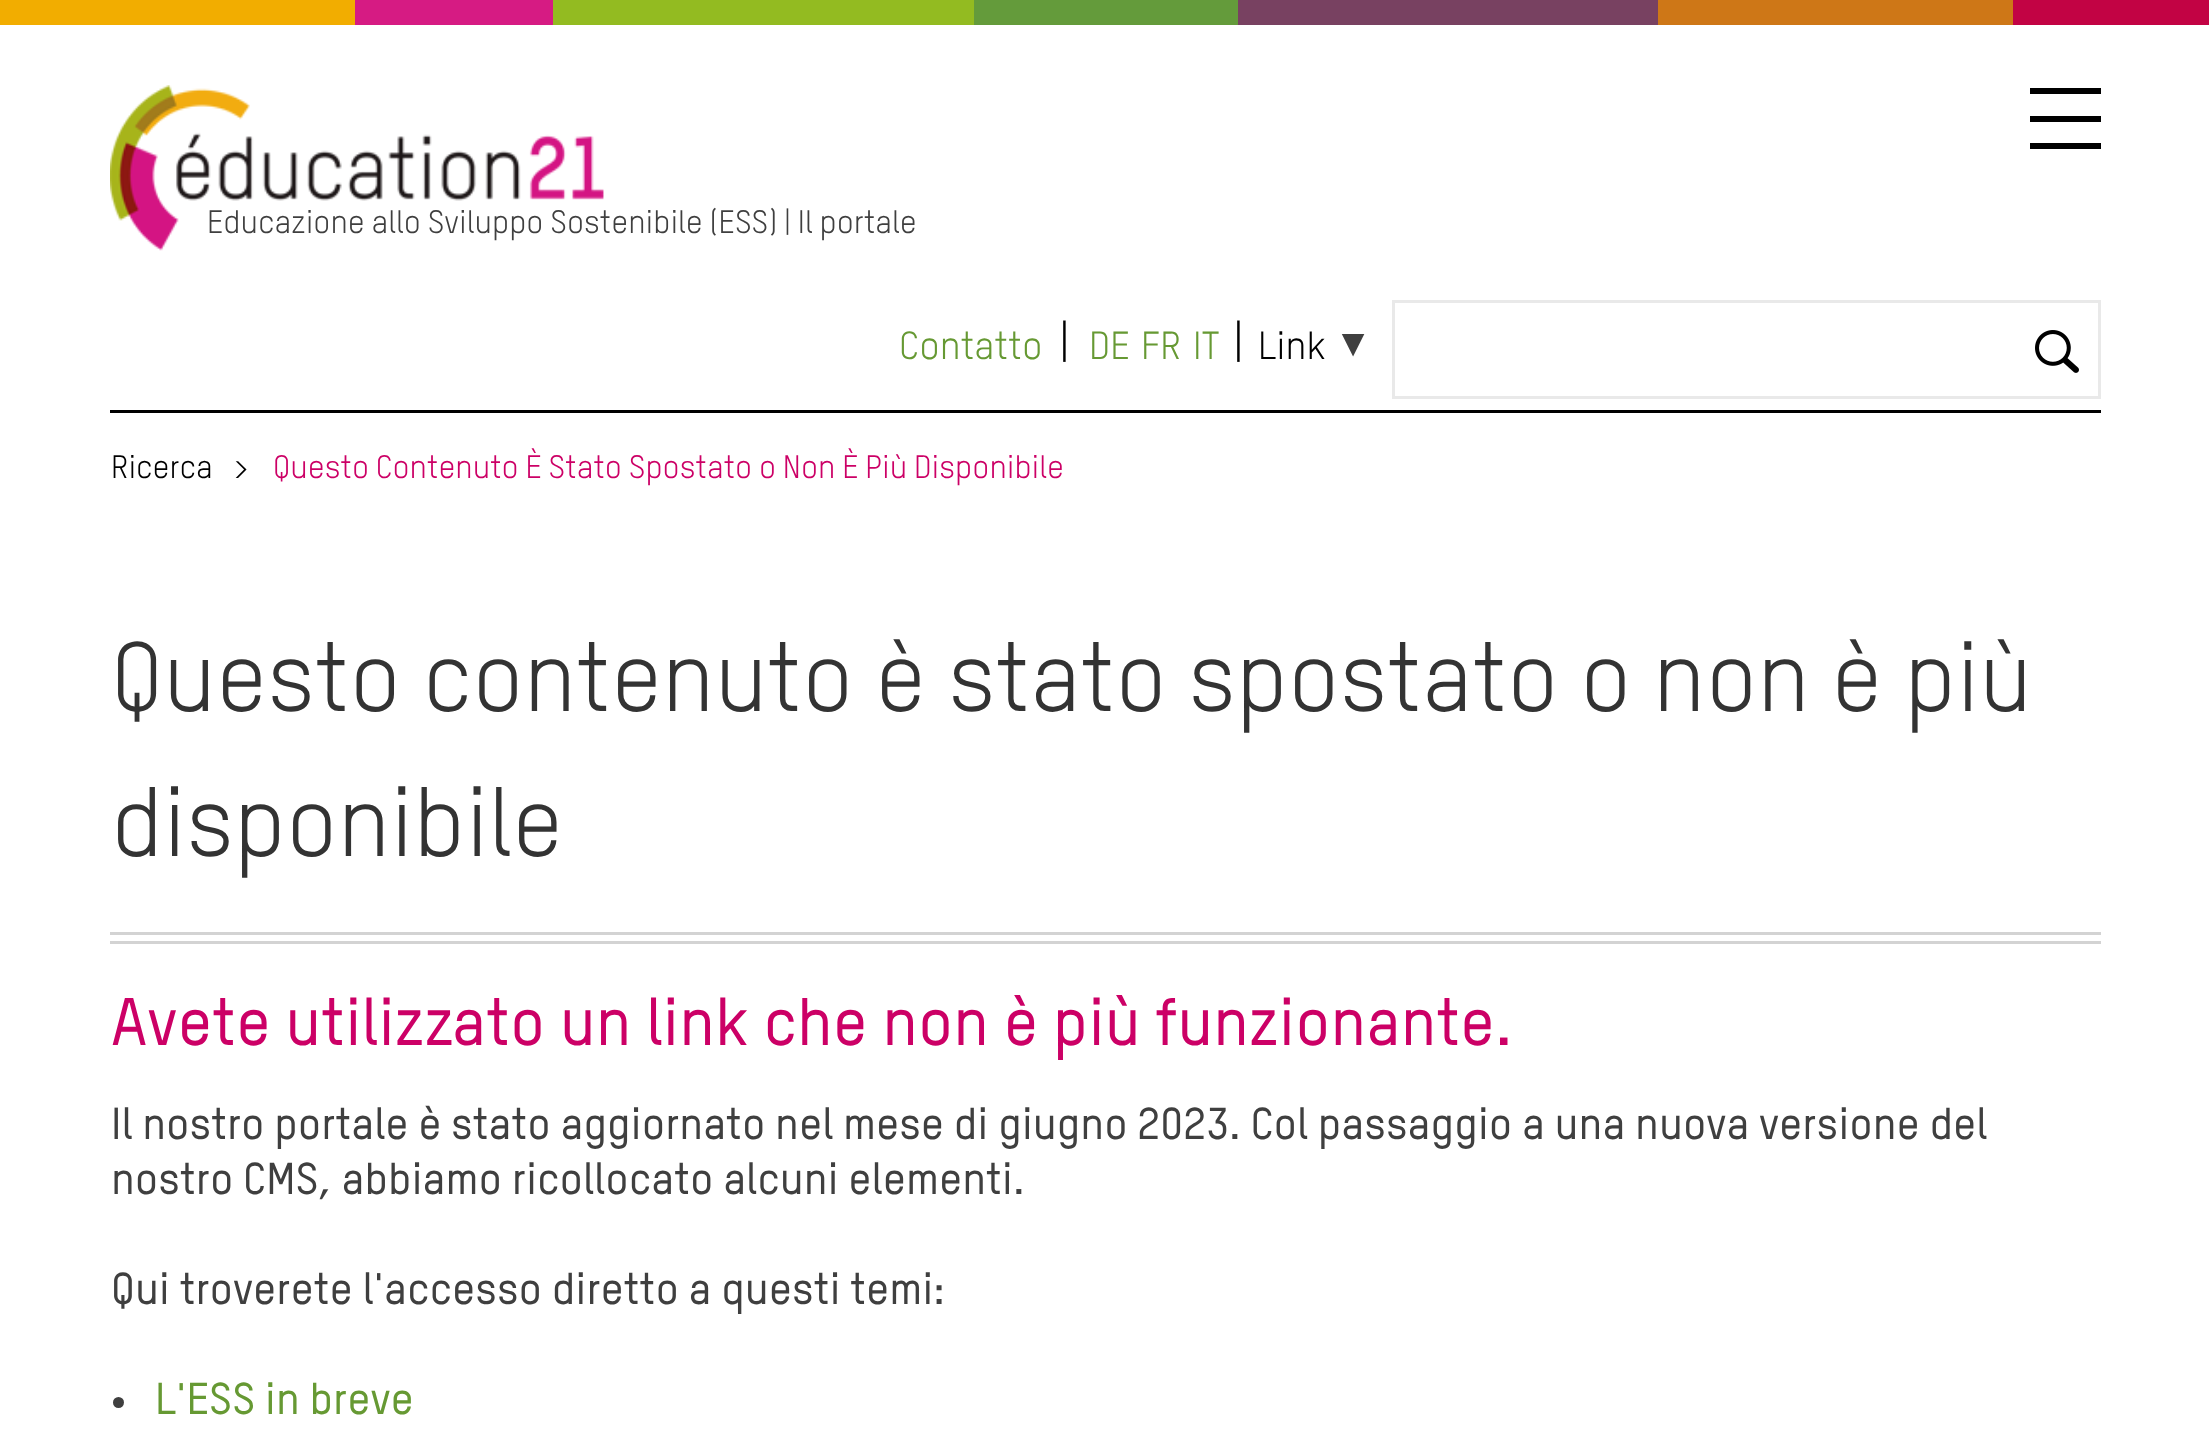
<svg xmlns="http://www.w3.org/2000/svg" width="2209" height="1449">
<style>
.a{font:32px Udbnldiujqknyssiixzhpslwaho;fill:#3f3f3f}
.b{font:38.5px Udbnldiujqknyssiixzhpslwaho;fill:#693}
.c{font:50px Udbnldiujqknyssiixzhpslwaho;fill:#000}
.d{font:38.5px Udbnldiujqknyssiixzhpslwaho;fill:#000}
.e{font:38.5px Liberation Sans;fill:#3f3f3f}
.f{font:32px Udbnldiujqknyssiixzhpslwaho;fill:#000}
.g{font:32px Udbnldiujqknyssiixzhpslwaho;fill:#c06}
.h{font:96.75px Udbnldiujqknyssiixzhpslwaho;fill:#333}
.i{font:500 66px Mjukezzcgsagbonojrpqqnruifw;fill:#c06}
.j{font:500 44px Mjukezzcgsagbonojrpqqnruifw;fill:#3f3f3f}
.k{font:500 44px Mjukezzcgsagbonojrpqqnruifw;fill:#693}
</style>
<rect width="100%" height="100%" fill="#fff"/>
<path fill="#f2ad00" d="M0 0h355v25H0z"/>
<path fill="#d61b83" d="M355 0h198v25H355z"/>
<path fill="#93bb21" d="M553 0h421v25H553z"/>
<path fill="#649b3b" d="M974 0h264v25H974z"/>
<path fill="#784161" d="M1238 0h420v25H1238z"/>
<path fill="#ce7717" d="M1658 0h355v25H1658z"/>
<path fill="#c20344" d="M2013 0h196v25H2013z"/>
<path fill="#000" d="M2030 116h71v6H2030z"/>
<path fill="#000" d="M2030 88h71v6H2030z"/>
<path fill="#000" d="M2030 143h71v6H2030z"/>
<image href="1.png" x="110" y="85" width="494" height="166"/>
<path fill="#000" d="M110 410h1991v3H110z"/>
<image href="2.png" x="2035" y="330" width="44" height="43"/>
<path fill="none" stroke="#e9e9e9" stroke-width="3" d="M1393.5 301.5h706v96H1393.5z"/>
<path fill="#d3d3d3" d="M110 932h1991v3H110z"/>
<path fill="#d3d3d3" d="M110 941h1991v3H110z"/>
<circle fill="#3f3f3f" cx="118.5" cy="1402.5" r="5.5"/>
<text class="a" x="207" y="233" word-spacing="-0.25">Educazione allo Sviluppo Sostenibile (ESS) | Il portale</text>
<text class="b" x="899" y="359">Contatto</text>
<text class="c" x="1059" y="359">|</text>
<text class="b" x="1089" y="359">DE</text>
<text class="b" x="1141" y="359">FR</text>
<text class="b" x="1193" y="359">IT</text>
<text class="c" x="1233" y="359">|</text>
<text class="d" x="1258" y="359">Link</text>
<text class="e" x="1334" y="356">▼</text>
<text class="f" x="111" y="478">Ricerca</text>
<text class="f" x="233" y="478">&gt;</text>
<text class="g" x="273" y="478" word-spacing="-0.25">Questo Contenuto È Stato Spostato o Non È Più Disponibile</text>
<text class="h" x="111" y="711">Questo contenuto è stato spostato o non è più</text>
<text class="h" x="111" y="856">disponibile</text>
<text class="i" x="111" y="1045">Avete utilizzato un link che non è più funzionante.</text>
<text class="j" x="111" y="1139">Il nostro portale è stato aggiornato nel mese di giugno 2023. Col passaggio a una nuova versione del</text>
<text class="j" x="111" y="1194">nostro CMS, abbiamo ricollocato alcuni elementi.</text>
<text class="j" x="111" y="1304">Qui troverete l'accesso diretto a questi temi:</text>
<text class="k" x="155" y="1414">L'ESS in breve</text>
</svg>
